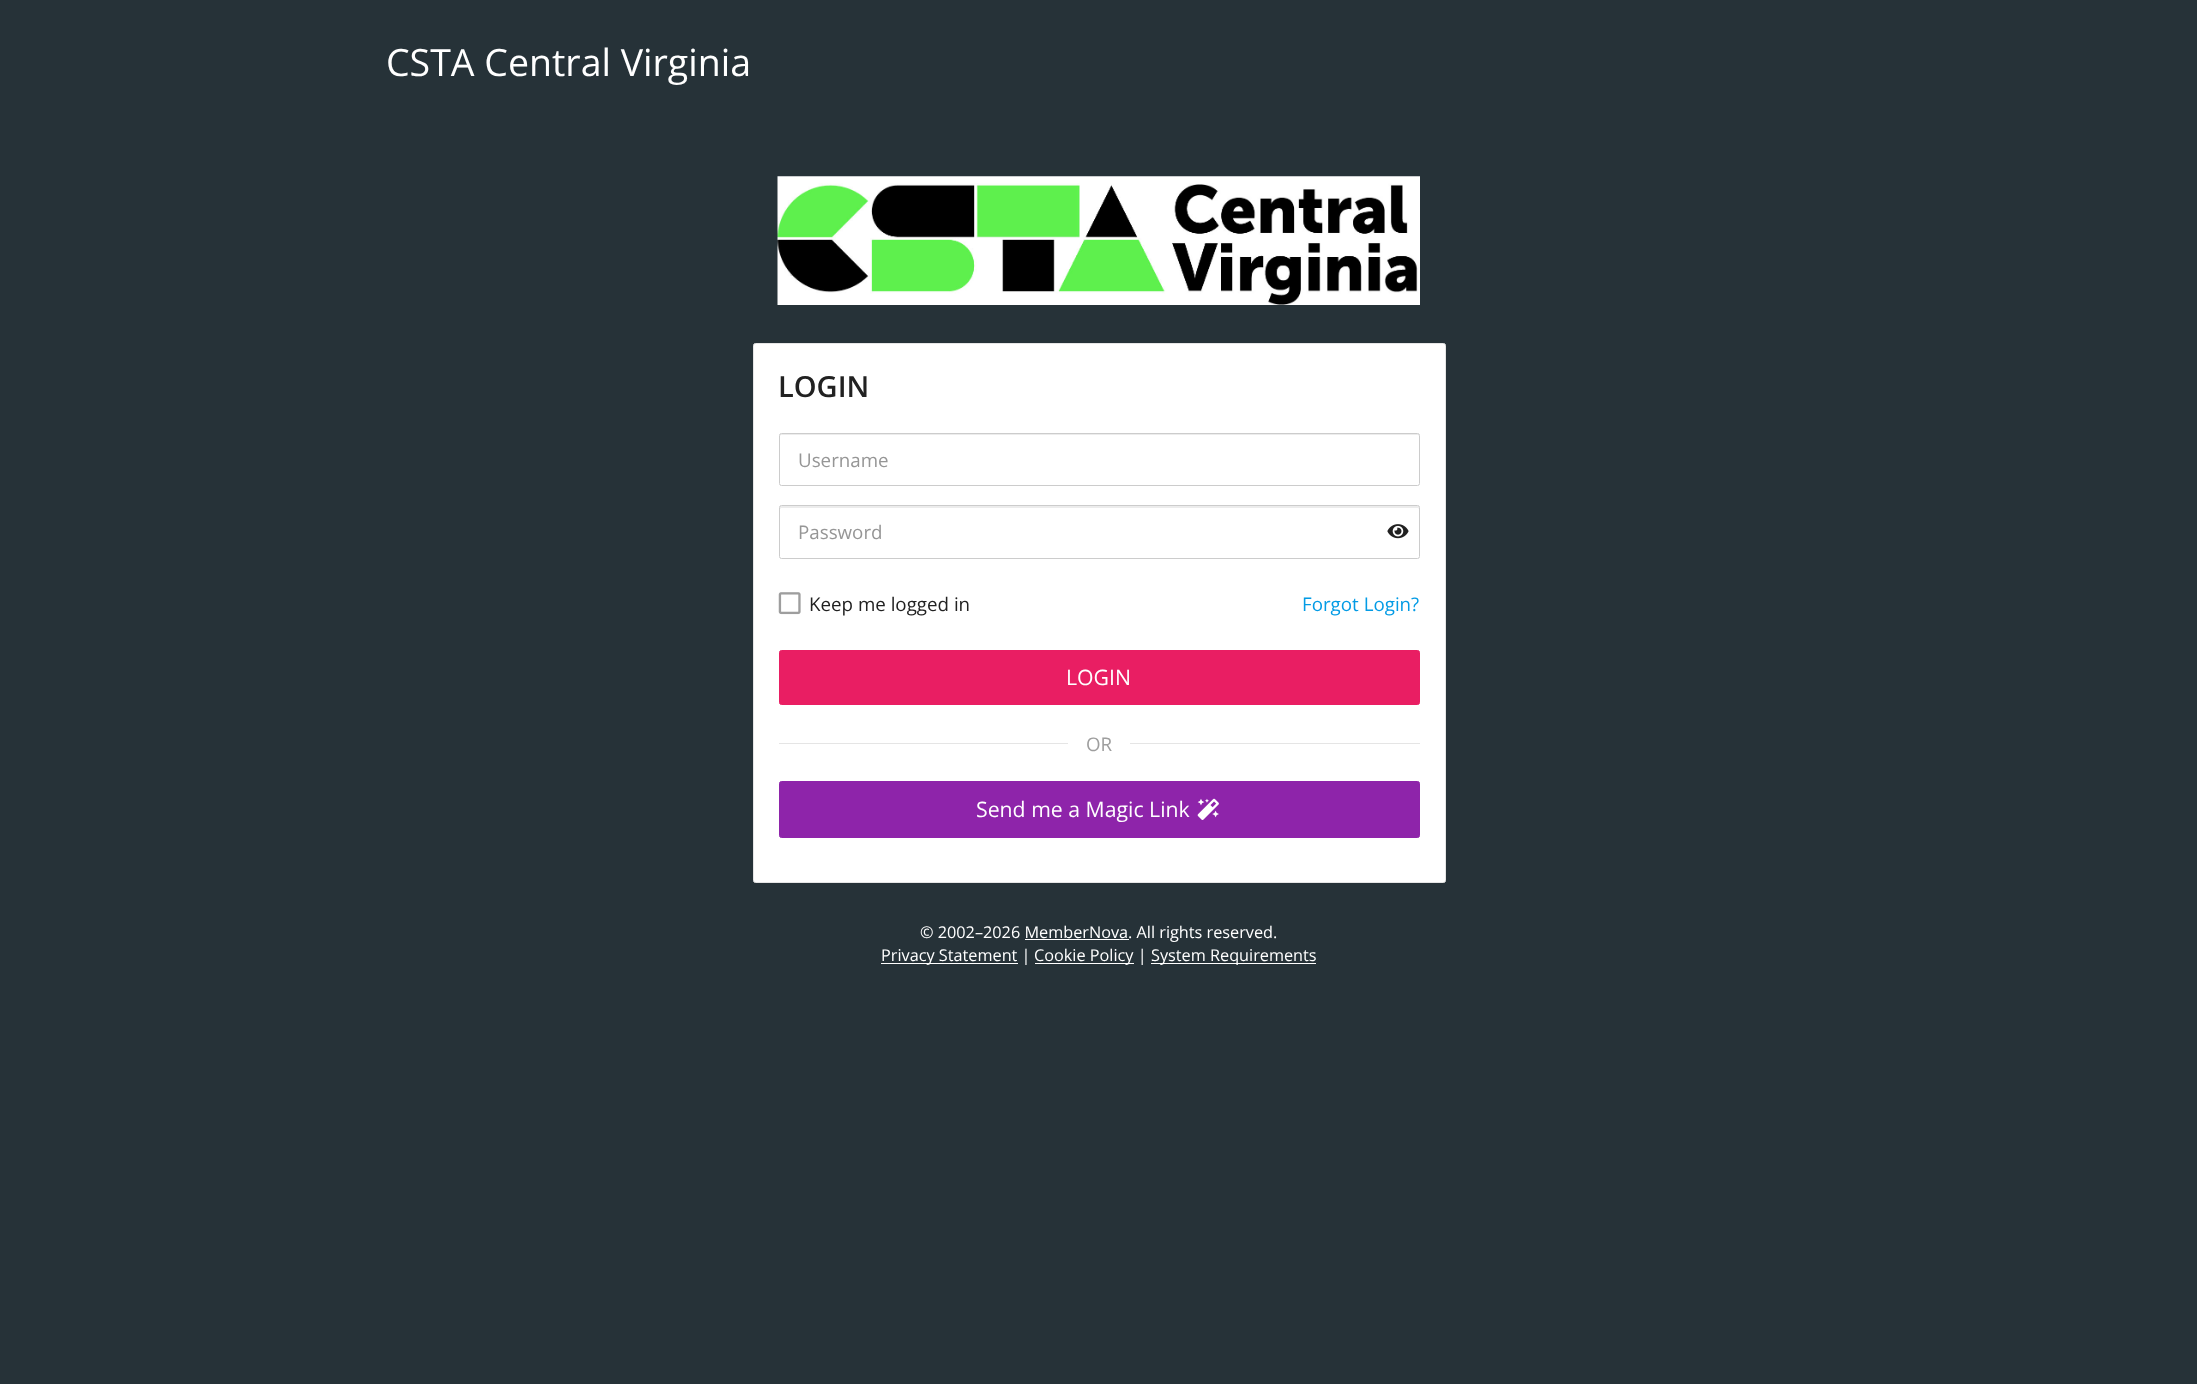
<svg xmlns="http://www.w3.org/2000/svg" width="2197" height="1384">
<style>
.a{font:37.5px Open Sans;fill:#fff}
.b{font:600 29px Open Sans;fill:#212121}
.c{font:18.75px Open Sans;fill:#969696}
.d{font:18.75px Open Sans;fill:#212121}
.e{font:18.75px Open Sans;fill:#039be5}
.f{font:21.25px Open Sans;fill:#fff}
.g{font:18.75px Open Sans;fill:#9e9e9e}
.h{font:16.25px Open Sans;fill:#fff}
</style>
<rect width="100%" height="100%" fill="#263238"/>
<image href="1.png" x="777" y="176" width="643" height="129"/>
<rect fill="#fff" stroke="#e5e5e5" x="753.5" y="343.5" width="692" height="539" rx="2"/>
<path fill="#ececec" d="M781 435h637l1 1c0-1 0-2-1-2h-637c-1 0-1 1-1 2z"/>
<rect fill="none" stroke="#ccc" x="779.5" y="433.5" width="640" height="52" rx="2"/>
<path fill="#ececec" d="M781 508h637l1 1c0-1 0-3-1-3h-637h-1v3z"/>
<rect fill="none" stroke="#ccc" x="779.5" y="505.5" width="640" height="53" rx="2"/>
<image href="2.png" x="1387" y="524" width="22" height="15"/>
<image href="3.png" x="778" y="592" width="23" height="23"/>
<rect fill="#e91e63" stroke="#e91e63" x="779.5" y="650.5" width="640" height="54" rx="2"/>
<path fill="#e5e5e5" d="M779 743h641v1H779z"/>
<path fill="#fff" d="M1068 743h62v1H1068z"/>
<rect fill="#8e24aa" stroke="#8e24aa" x="779.5" y="781.5" width="640" height="56" rx="2"/>
<image href="4.png" x="1197" y="798" width="22" height="22"/>
<path fill="#fff" d="M1025 939h104v1H1025z"/>
<path fill="#fff" d="M881 963h137v1H881z"/>
<path fill="#fff" d="M1035 963h99v1H1035z"/>
<path fill="#fff" d="M1151 963h165v1H1151z"/>
<text class="a" x="386" y="76">CSTA Central Virginia</text>
<text class="b" x="778" y="397">LOGIN</text>
<text class="c" x="798" y="467">Username</text>
<text class="c" x="798" y="539">Password</text>
<text class="d" x="809" y="611">Keep me logged in</text>
<text class="e" x="1302" y="611">Forgot Login?</text>
<text class="f" x="1066" y="685">LOGIN</text>
<text class="g" x="1086" y="751">OR</text>
<text class="f" x="976" y="817">Send me a Magic Link</text>
<text class="h" x="920" y="938">© 2002–2026 MemberNova. All rights reserved.</text>
<text class="h" x="881" y="961">Privacy Statement |</text>
<text class="h" x="1034" y="961">Cookie Policy |</text>
<text class="h" x="1151" y="961">System Requirements</text>
</svg>
